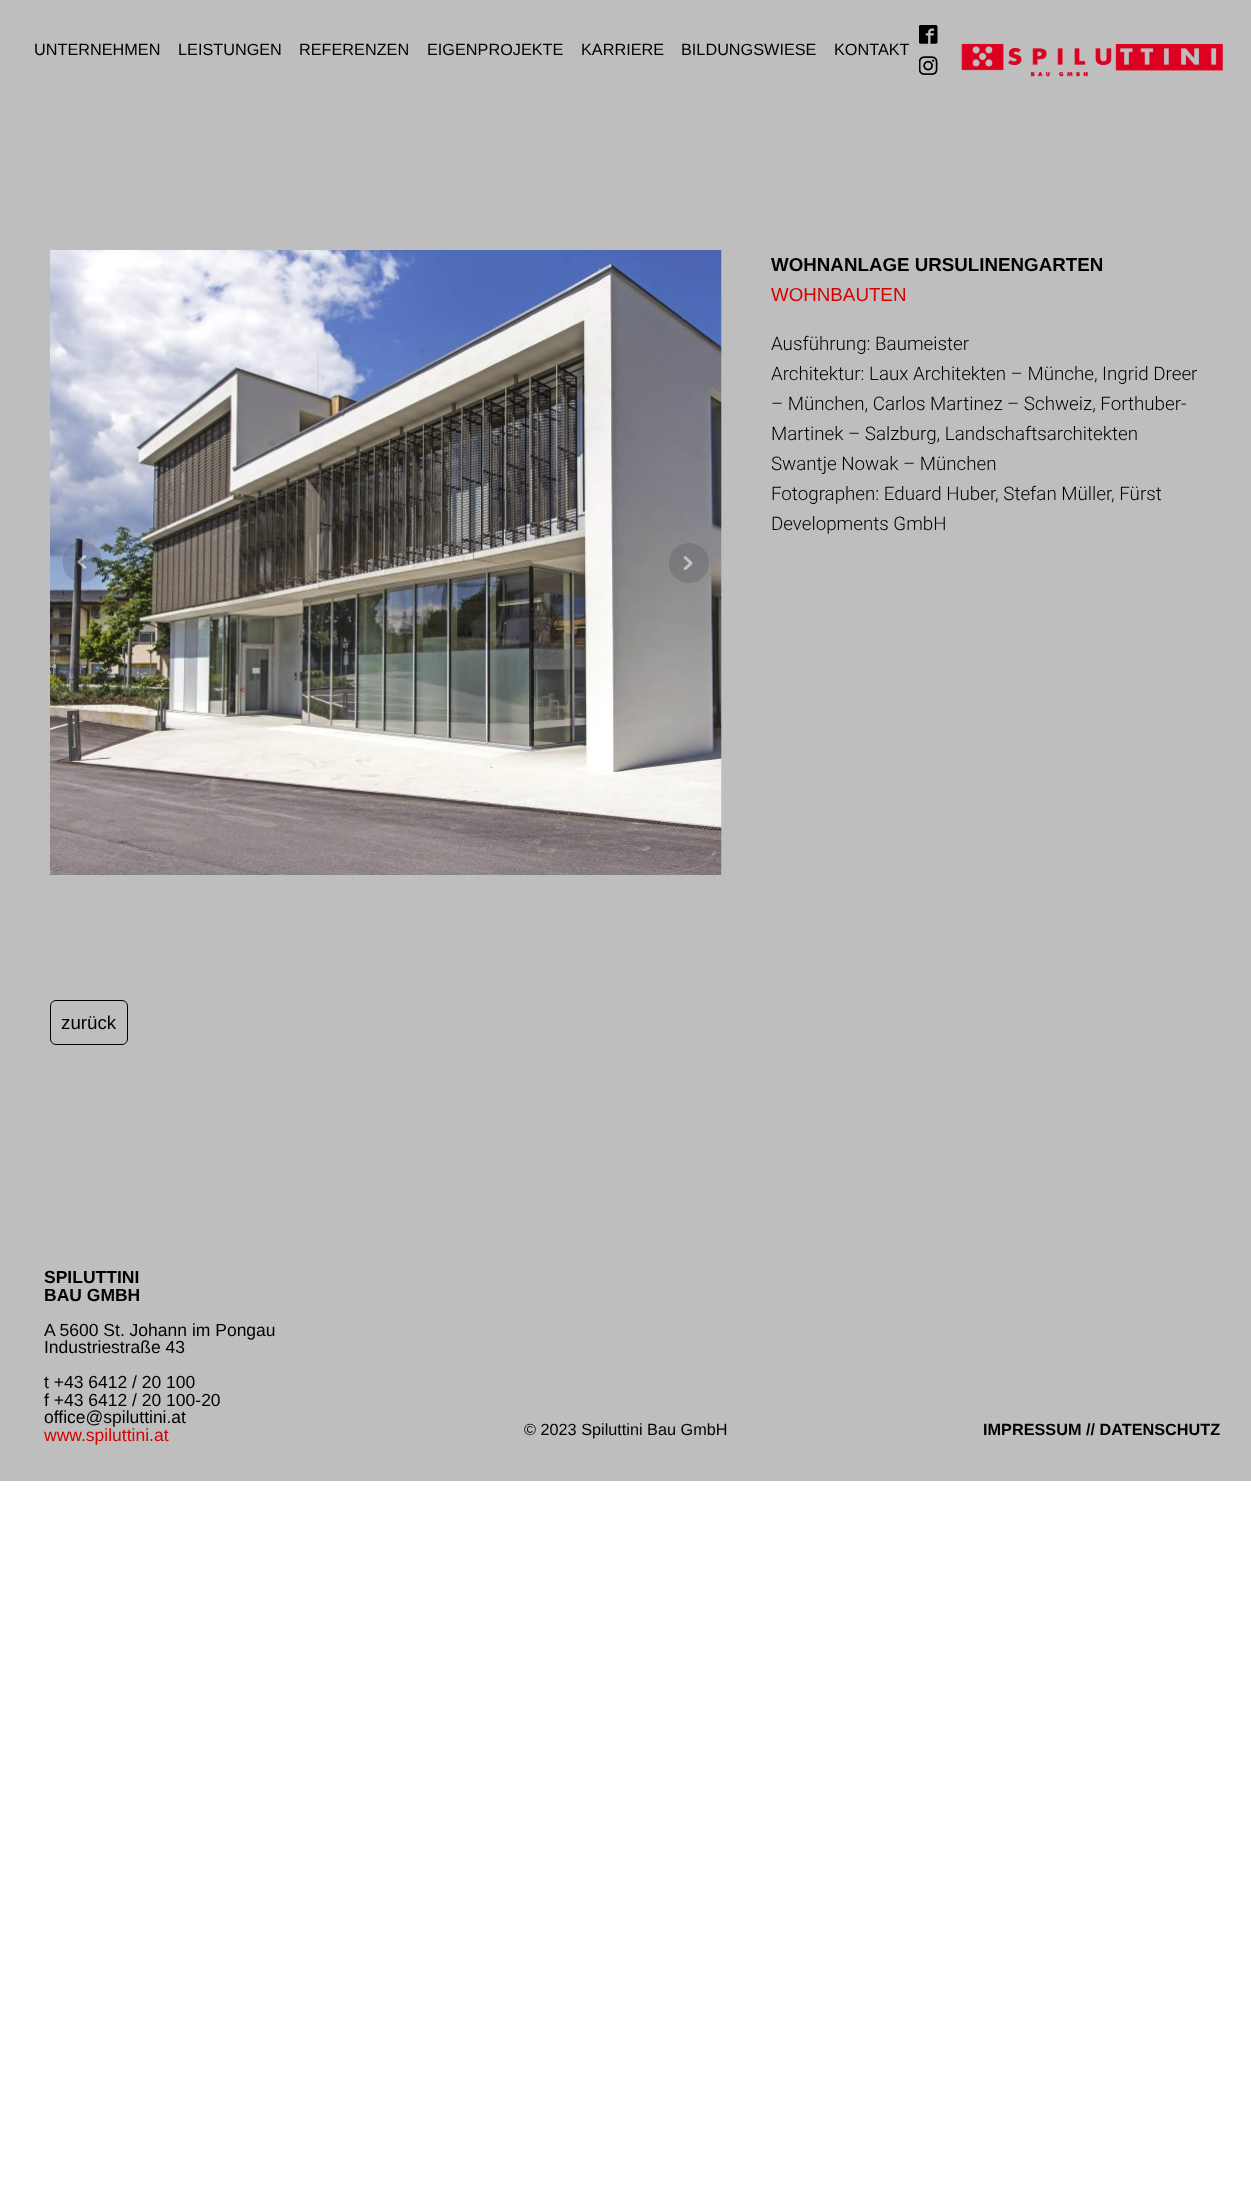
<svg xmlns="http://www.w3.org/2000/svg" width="1251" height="2211">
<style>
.a{font:16.25px Liberation Sans;fill:#000}
.b{font:bold 18.75px Liberation Sans;fill:#000}
.c{font:18.75px Liberation Sans;fill:#d60202}
.d{font:300 18.75px Roboto;fill:#000}
.e{font:18.75px Liberation Sans;fill:#000}
.f{font:bold 17.5px Liberation Sans;fill:#000}
.g{font:17.5px Liberation Sans;fill:#000}
.h{font:17.5px Liberation Sans;fill:#d60202}
.i{font:bold 16.25px Liberation Sans;fill:#000}
</style>
<rect width="100%" height="100%" fill="#fff"/>
<path fill="#bebebe" d="M0 0h1251v1481H0z"/>
<image href="1.png" x="919" y="25" width="19" height="19"/>
<image href="2.png" x="919" y="56" width="19" height="19"/>
<image href="3.png" x="961" y="43" width="262" height="34"/>
<image href="4.png" x="50" y="250" width="672" height="625"/>
<path fill="#0000001f" d="M82 582c-26 0-26-40 0-40c27 0 27 40 0 40z"/>
<image href="5.png" x="77" y="555" width="10" height="14"/>
<circle fill="#0000001f" cx="689" cy="563" r="20"/>
<image href="6.png" x="683" y="556" width="10" height="14"/>
<rect fill="none" stroke="#000" x="50.5" y="1000.5" width="77" height="44" rx="5.5"/>
<text class="a" x="34" y="55">UNTERNEHMEN</text>
<text class="a" x="178" y="55">LEISTUNGEN</text>
<text class="a" x="299" y="55">REFERENZEN</text>
<text class="a" x="427" y="55">EIGENPROJEKTE</text>
<text class="a" x="581" y="55">KARRIERE</text>
<text class="a" x="681" y="55">BILDUNGSWIESE</text>
<text class="a" x="834" y="55">KONTAKT</text>
<text class="b" x="771" y="271">WOHNANLAGE URSULINENGARTEN</text>
<text class="c" x="771" y="301">WOHNBAUTEN</text>
<text class="d" x="771" y="350">Ausführung: Baumeister</text>
<text class="d" x="771" y="380">Architektur: Laux Architekten – Münche, Ingrid Dreer</text>
<text class="d" x="771" y="410">– München, Carlos Martinez – Schweiz, Forthuber-</text>
<text class="d" x="771" y="440">Martinek – Salzburg, Landschaftsarchitekten</text>
<text class="d" x="771" y="470">Swantje Nowak – München</text>
<text class="d" x="771" y="500">Fotographen: Eduard Huber, Stefan Müller, Fürst</text>
<text class="d" x="771" y="530">Developments GmbH</text>
<text class="e" x="61" y="1029">zurück</text>
<text class="f" x="44" y="1283">SPILUTTINI</text>
<text class="f" x="44" y="1301">BAU GMBH</text>
<text class="g" x="44" y="1336">A 5600 St. Johann im Pongau</text>
<text class="g" x="44" y="1353">Industriestraße 43</text>
<text class="g" x="44" y="1388">t +43 6412 / 20 100</text>
<text class="g" x="44" y="1406">f +43 6412 / 20 100-20</text>
<text class="g" x="44" y="1423">office@spiluttini.at</text>
<text class="h" x="44" y="1441">www.spiluttini.at</text>
<text class="a" x="524" y="1435">© 2023 Spiluttini Bau GmbH</text>
<text class="i" x="983" y="1435">IMPRESSUM // DATENSCHUTZ</text>
</svg>
